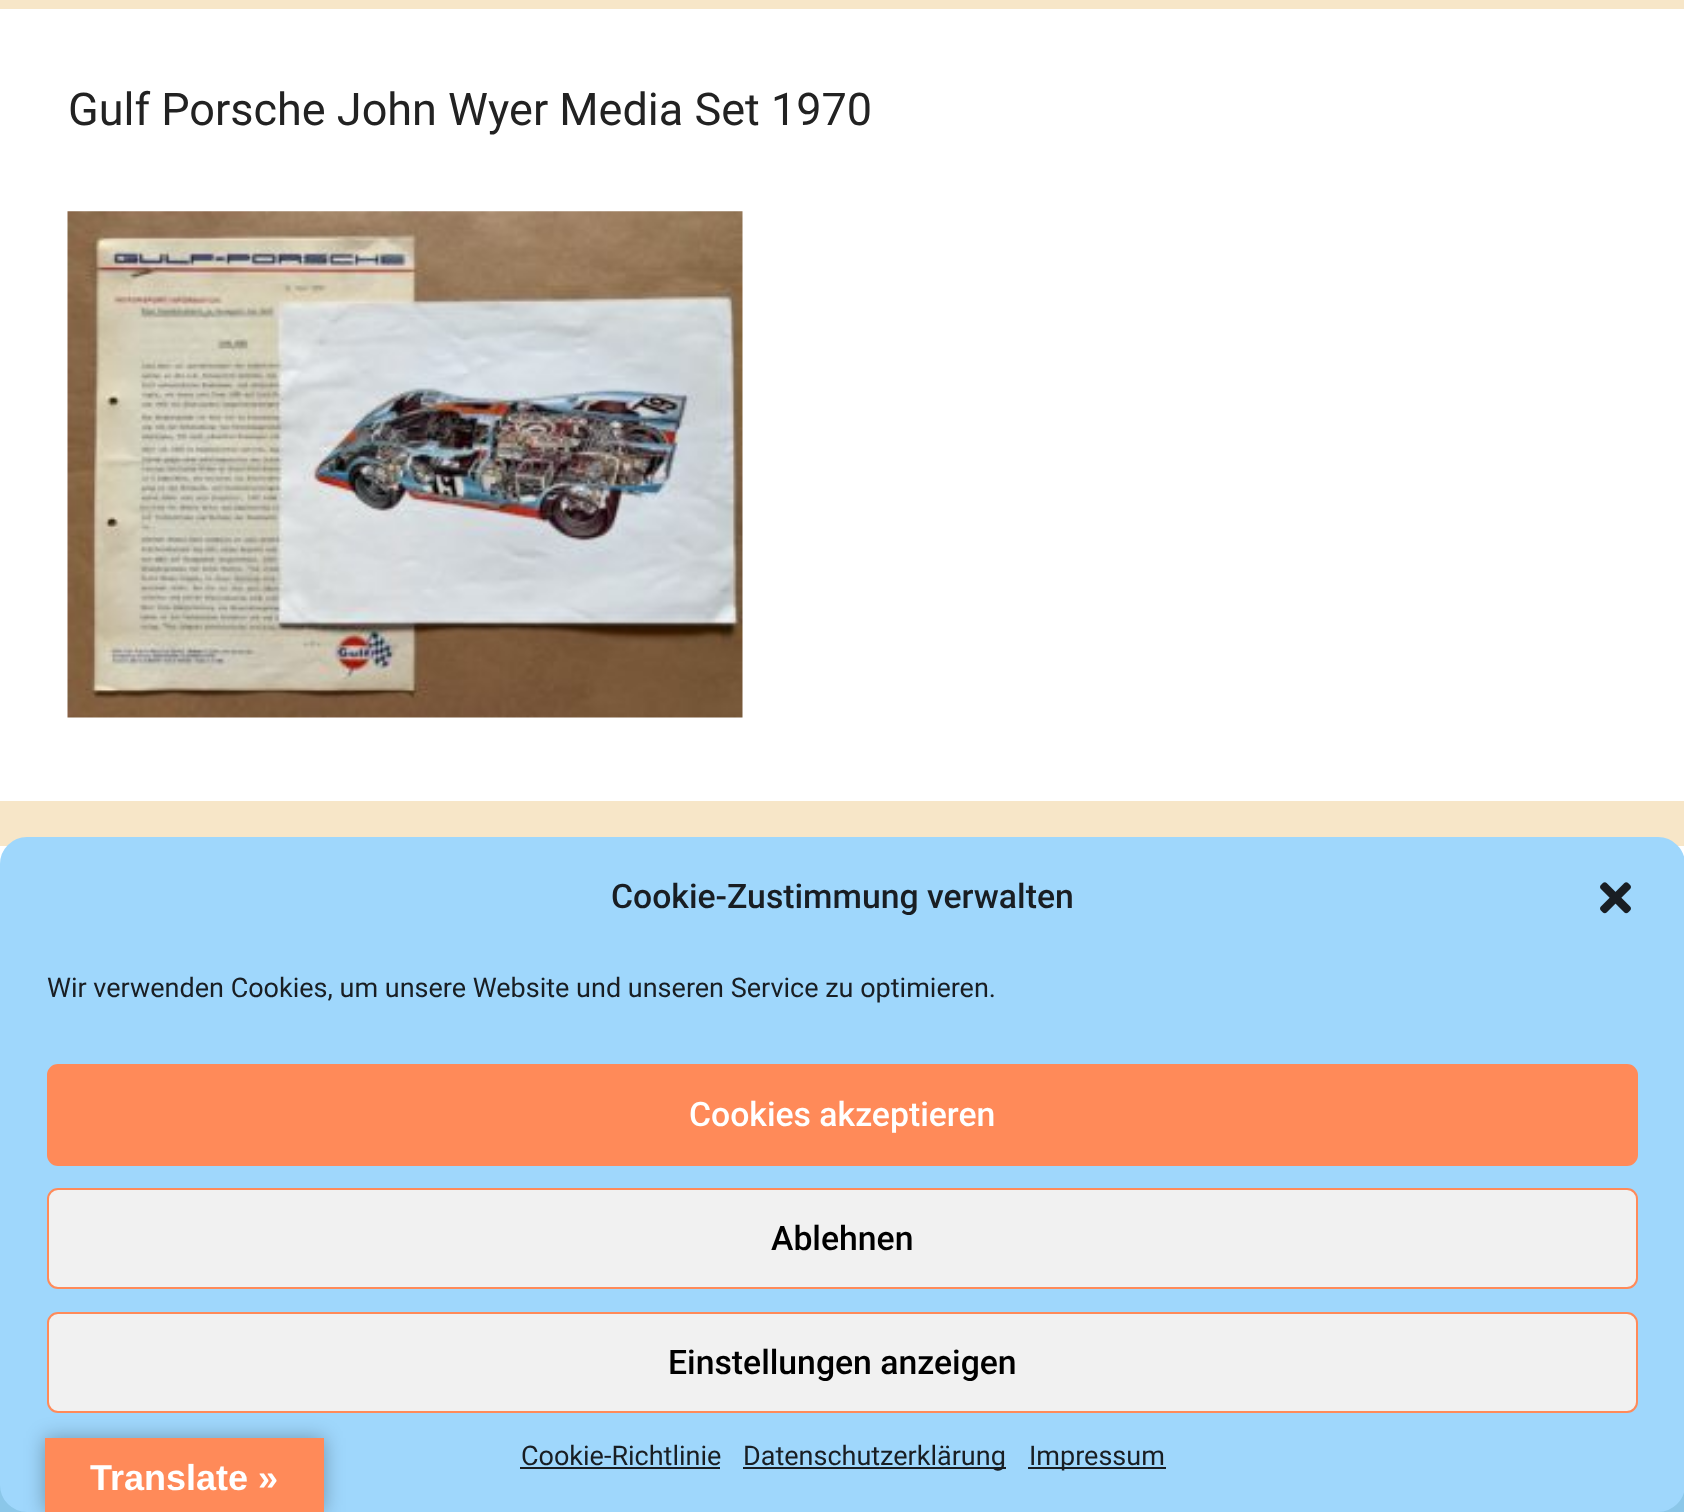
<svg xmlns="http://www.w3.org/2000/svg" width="1684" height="1512">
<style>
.a{font:45px Roboto;fill:#222}
.b{font:500 33.75px Roboto;fill:#191e23}
.c{font:27px Roboto;fill:#191e23}
.d{font:500 33.75px Roboto;fill:#fff}
.e{font:500 33.75px Roboto;fill:#000}
.f{font:bold 36px Liberation Sans;fill:#fff}
</style>
<rect width="100%" height="100%" fill="#f7e6c8"/>
<path fill="#fff" d="M0 9h1684v792H0z"/>
<image href="1.png" x="67" y="211" width="676" height="507"/>
<path fill="#fff" d="M0 846h1684v18H0z"/>
<path fill="#8bc7e9" d="M0 1485h1684v27H0z"/>
<rect fill="#9fd7fc" stroke="#9fd7fc" stroke-width="2" x="1" y="838" width="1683" height="673" rx="26"/>
<image href="2.png" x="1600" y="882" width="31" height="32"/>
<rect fill="#ff8a59" stroke="#ff8a59" stroke-width="2" x="48" y="1065" width="1589" height="100" rx="10"/>
<rect fill="#f1f1f1" stroke="#ff8a59" stroke-width="2" x="48" y="1189" width="1589" height="99" rx="10"/>
<rect fill="#f1f1f1" stroke="#ff8a59" stroke-width="2" x="48" y="1313" width="1589" height="99" rx="10"/>
<path fill="#191e23" d="M520 1467h200v2H520z"/>
<path fill="#191e23" d="M743 1467h263v2H743z"/>
<path fill="#191e23" d="M1028 1467h138v2H1028z"/>
<path fill="#0000004d" filter="blur(10px)" d="M45 1438h279v74H45z"/>
<path fill="#ff8a59" d="M45 1438h279v74H45z"/>
<text class="a" x="68" y="125">Gulf Porsche John Wyer Media Set 1970</text>
<text class="b" x="611" y="908">Cookie-Zustimmung verwalten</text>
<text class="c" x="47" y="997">Wir verwenden Cookies, um unsere Website und unseren Service zu optimieren.</text>
<text class="d" x="689" y="1126">Cookies akzeptieren</text>
<text class="e" x="771" y="1250">Ablehnen</text>
<text class="e" x="668" y="1374">Einstellungen anzeigen</text>
<text class="c" x="521" y="1465">Cookie-Richtlinie</text>
<text class="c" x="743" y="1465">Datenschutzerklärung</text>
<text class="c" x="1029" y="1465">Impressum</text>
<text class="f" x="90" y="1490">Translate »</text>
</svg>
